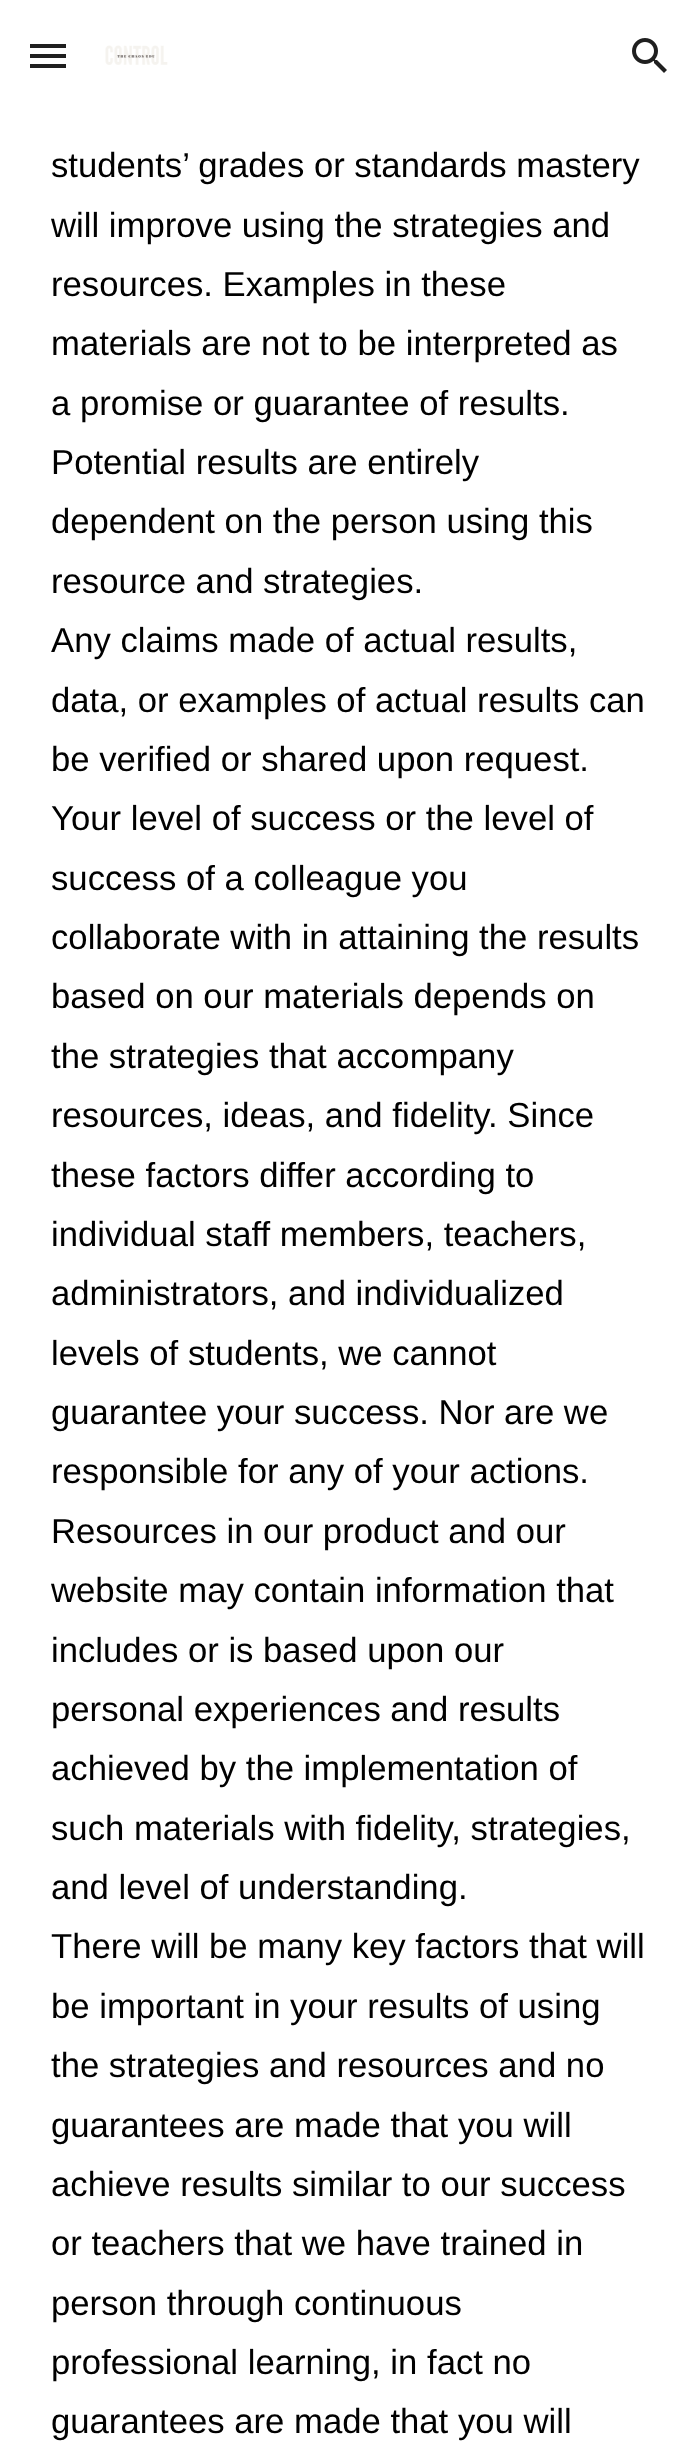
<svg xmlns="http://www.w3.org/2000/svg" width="697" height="2457">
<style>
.a{font:34.7px Liberation Sans;fill:#000}
</style>
<rect width="100%" height="100%" fill="#fff"/>
<path fill="#1f1f1f" d="M30 44h36v4H30z"/>
<path fill="#1f1f1f" d="M30 54h36v4H30z"/>
<path fill="#1f1f1f" d="M30 64h36v4H30z"/>
<image href="1.png" x="105" y="45" width="63" height="20"/>
<image href="2.png" x="632" y="38" width="35" height="35"/>
<text class="a" x="51" y="177">students’ grades or standards mastery</text>
<text class="a" x="51" y="237">will improve using the strategies and</text>
<text class="a" x="51" y="296">resources. Examples in these</text>
<text class="a" x="51" y="355">materials are not to be interpreted as</text>
<text class="a" x="51" y="415">a promise or guarantee of results.</text>
<text class="a" x="51" y="474">Potential results are entirely</text>
<text class="a" x="51" y="533">dependent on the person using this</text>
<text class="a" x="51" y="593">resource and strategies.</text>
<text class="a" x="51" y="652">Any claims made of actual results,</text>
<text class="a" x="51" y="712">data, or examples of actual results can</text>
<text class="a" x="51" y="771">be verified or shared upon request.</text>
<text class="a" x="51" y="830">Your level of success or the level of</text>
<text class="a" x="51" y="890">success of a colleague you</text>
<text class="a" x="51" y="949">collaborate with in attaining the results</text>
<text class="a" x="51" y="1008">based on our materials depends on</text>
<text class="a" x="51" y="1068">the strategies that accompany</text>
<text class="a" x="51" y="1127">resources, ideas, and fidelity. Since</text>
<text class="a" x="51" y="1187">these factors differ according to</text>
<text class="a" x="51" y="1246">individual staff members, teachers,</text>
<text class="a" x="51" y="1305">administrators, and individualized</text>
<text class="a" x="51" y="1365">levels of students, we cannot</text>
<text class="a" x="51" y="1424">guarantee your success. Nor are we</text>
<text class="a" x="51" y="1483">responsible for any of your actions.</text>
<text class="a" x="51" y="1543">Resources in our product and our</text>
<text class="a" x="51" y="1602">website may contain information that</text>
<text class="a" x="51" y="1662">includes or is based upon our</text>
<text class="a" x="51" y="1721">personal experiences and results</text>
<text class="a" x="51" y="1780">achieved by the implementation of</text>
<text class="a" x="51" y="1840">such materials with fidelity, strategies,</text>
<text class="a" x="51" y="1899">and level of understanding.</text>
<text class="a" x="51" y="1958">There will be many key factors that will</text>
<text class="a" x="51" y="2018">be important in your results of using</text>
<text class="a" x="51" y="2077">the strategies and resources and no</text>
<text class="a" x="51" y="2137">guarantees are made that you will</text>
<text class="a" x="51" y="2196">achieve results similar to our success</text>
<text class="a" x="51" y="2255">or teachers that we have trained in</text>
<text class="a" x="51" y="2315">person through continuous</text>
<text class="a" x="51" y="2374">professional learning, in fact no</text>
<text class="a" x="51" y="2433">guarantees are made that you will</text>
</svg>
